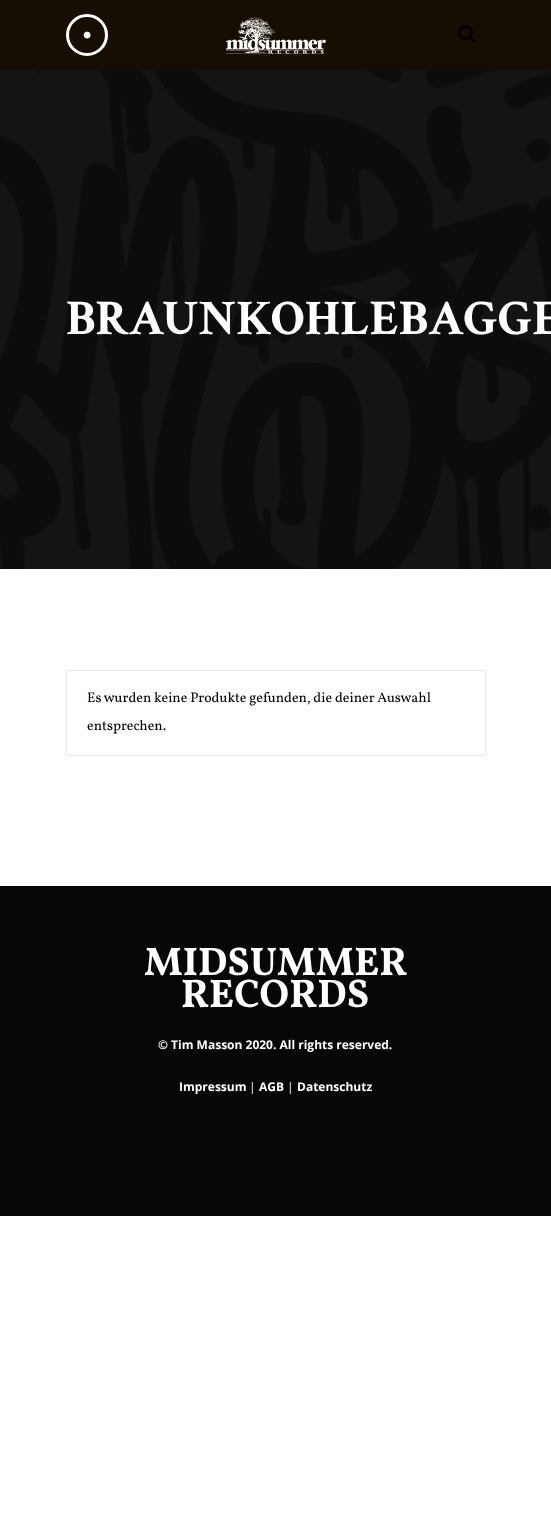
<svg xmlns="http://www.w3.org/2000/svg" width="551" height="1515">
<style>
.a{font:bold 50px Crimson Text;fill:#fff}
.b{font:14px Vollkorn;fill:#000}
.c{font:bold 40px Vollkorn;fill:#fff}
.d{font:bold 12px Open Sans;fill:#fff}
.e{font:12px Open Sans;fill:#fff}
</style>
<rect width="100%" height="100%" fill="#fff"/>
<path fill="#170e03" d="M0 0h551v70H0z"/>
<circle fill="none" stroke="#fff" stroke-width="3" cx="87" cy="35" r="19.5"/>
<circle fill="#fff" stroke="#fff" cx="87.1" cy="35.1" r="3"/>
<image href="1.png" x="226" y="17" width="100" height="37"/>
<image href="2.png" x="458" y="25" width="18" height="18"/>
<image href="3.png" x="0" y="70" width="551" height="499"/>
<path fill="none" stroke="#e8e8e8" d="M66.5 670.5h419v85H66.5z"/>
<path fill="#070707" d="M0 886h551v330H0z"/>
<text class="a" x="66" y="334">BRAUNKOHLEBAGGE</text>
<text class="b" x="87" y="702">Es wurden keine Produkte gefunden, die deiner Auswahl</text>
<text class="b" x="87" y="730">entsprechen.</text>
<text class="c" x="144" y="975">MIDSUMMER</text>
<text class="c" x="181" y="1007">RECORDS</text>
<text class="d" x="158" y="1049">© Tim Masson 2020. All rights reserved.</text>
<text class="d" x="179" y="1091">Impressum</text>
<text class="e" x="249" y="1091">|</text>
<text class="d" x="259" y="1091">AGB</text>
<text class="e" x="287" y="1091">|</text>
<text class="d" x="297" y="1091">Datenschutz</text>
</svg>
